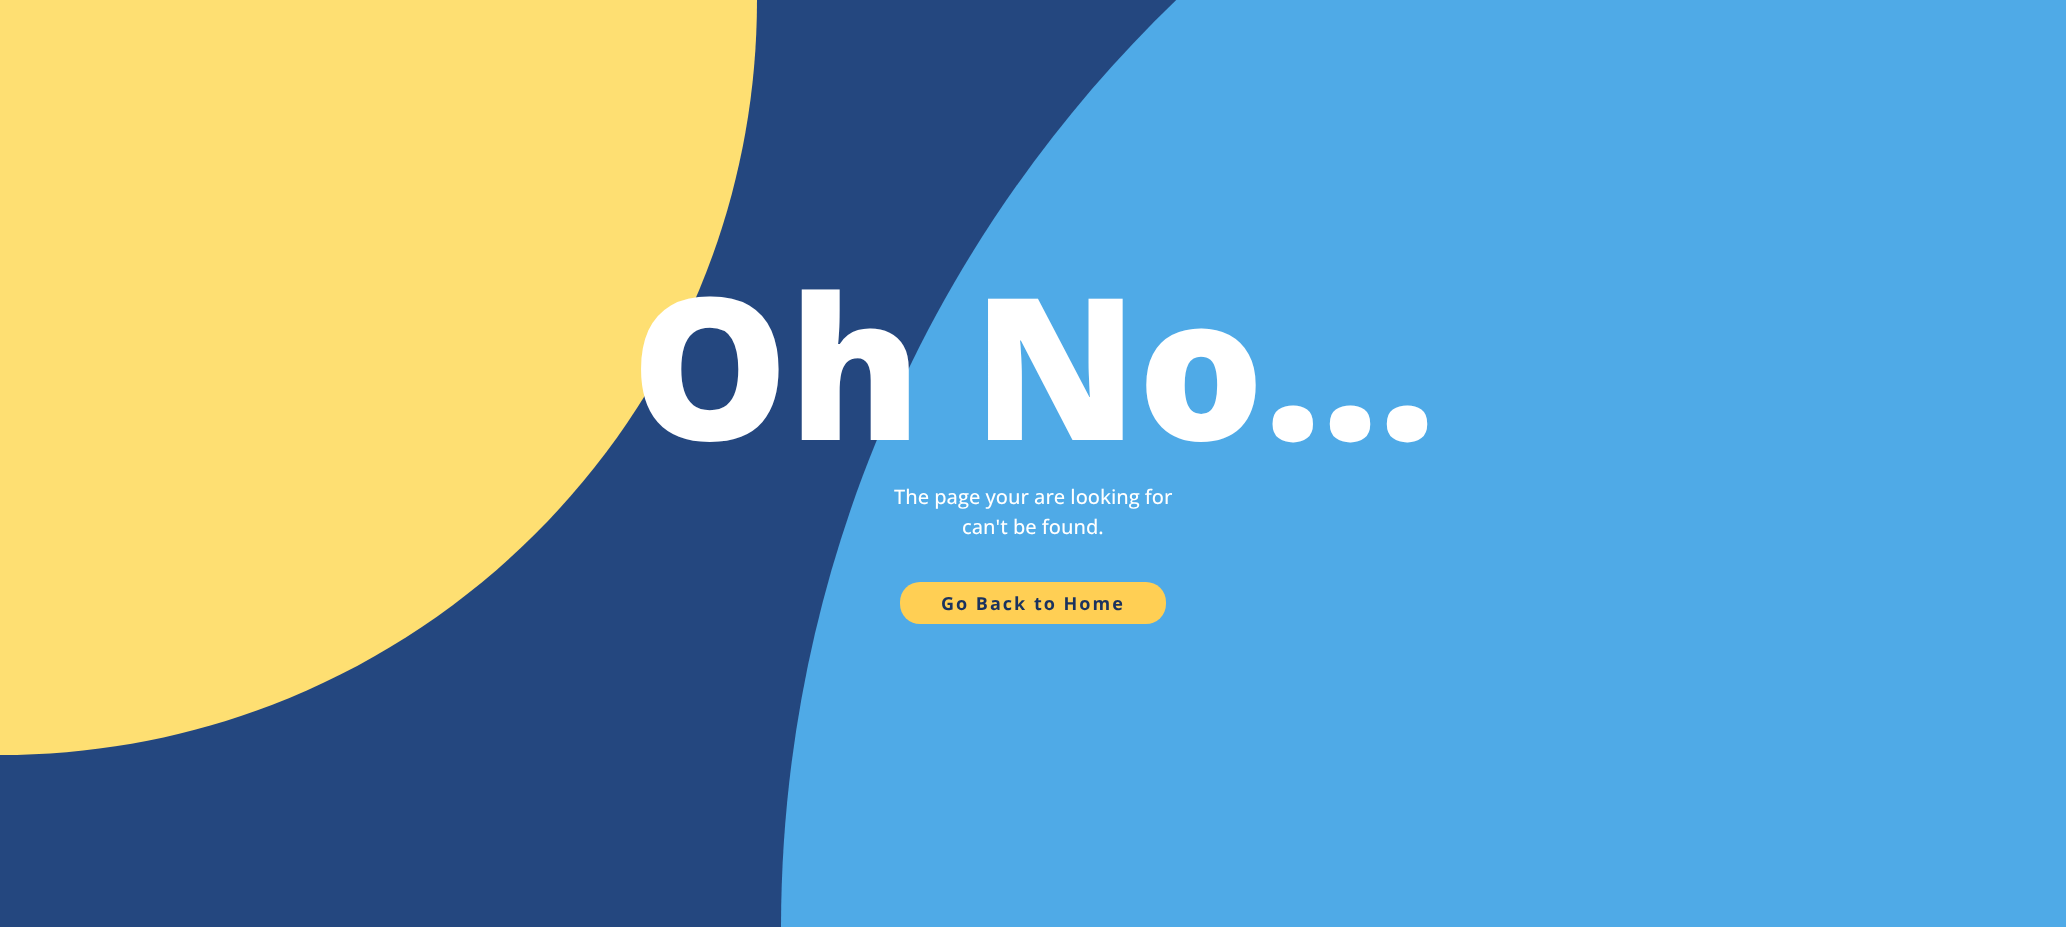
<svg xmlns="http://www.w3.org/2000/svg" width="2066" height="927">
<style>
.a{font:800 198px Open Sans;fill:#fff}
.b{font:500 20px Open Sans;fill:#fff}
.c{font:bold 18px Open Sans;letter-spacing:2px;fill:#1a325e}
</style>
<rect width="100%" height="100%" fill="#24477f"/>
<path fill="#fedf72" d="M757 0c0 418-340 755-757 755v-755z"/>
<path fill="#4faae7" d="M781 927c1-710 575-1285 1285-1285v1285z"/>
<rect fill="#ffcf54" x="900" y="582" width="266" height="42" rx="20"/>
<text class="a" x="631" y="440">Oh No...</text>
<text class="b" x="894" y="504">The page your are looking for</text>
<text class="b" x="962" y="534">can't be found.</text>
<text class="c" x="941" y="610">Go Back to Home</text>
</svg>
